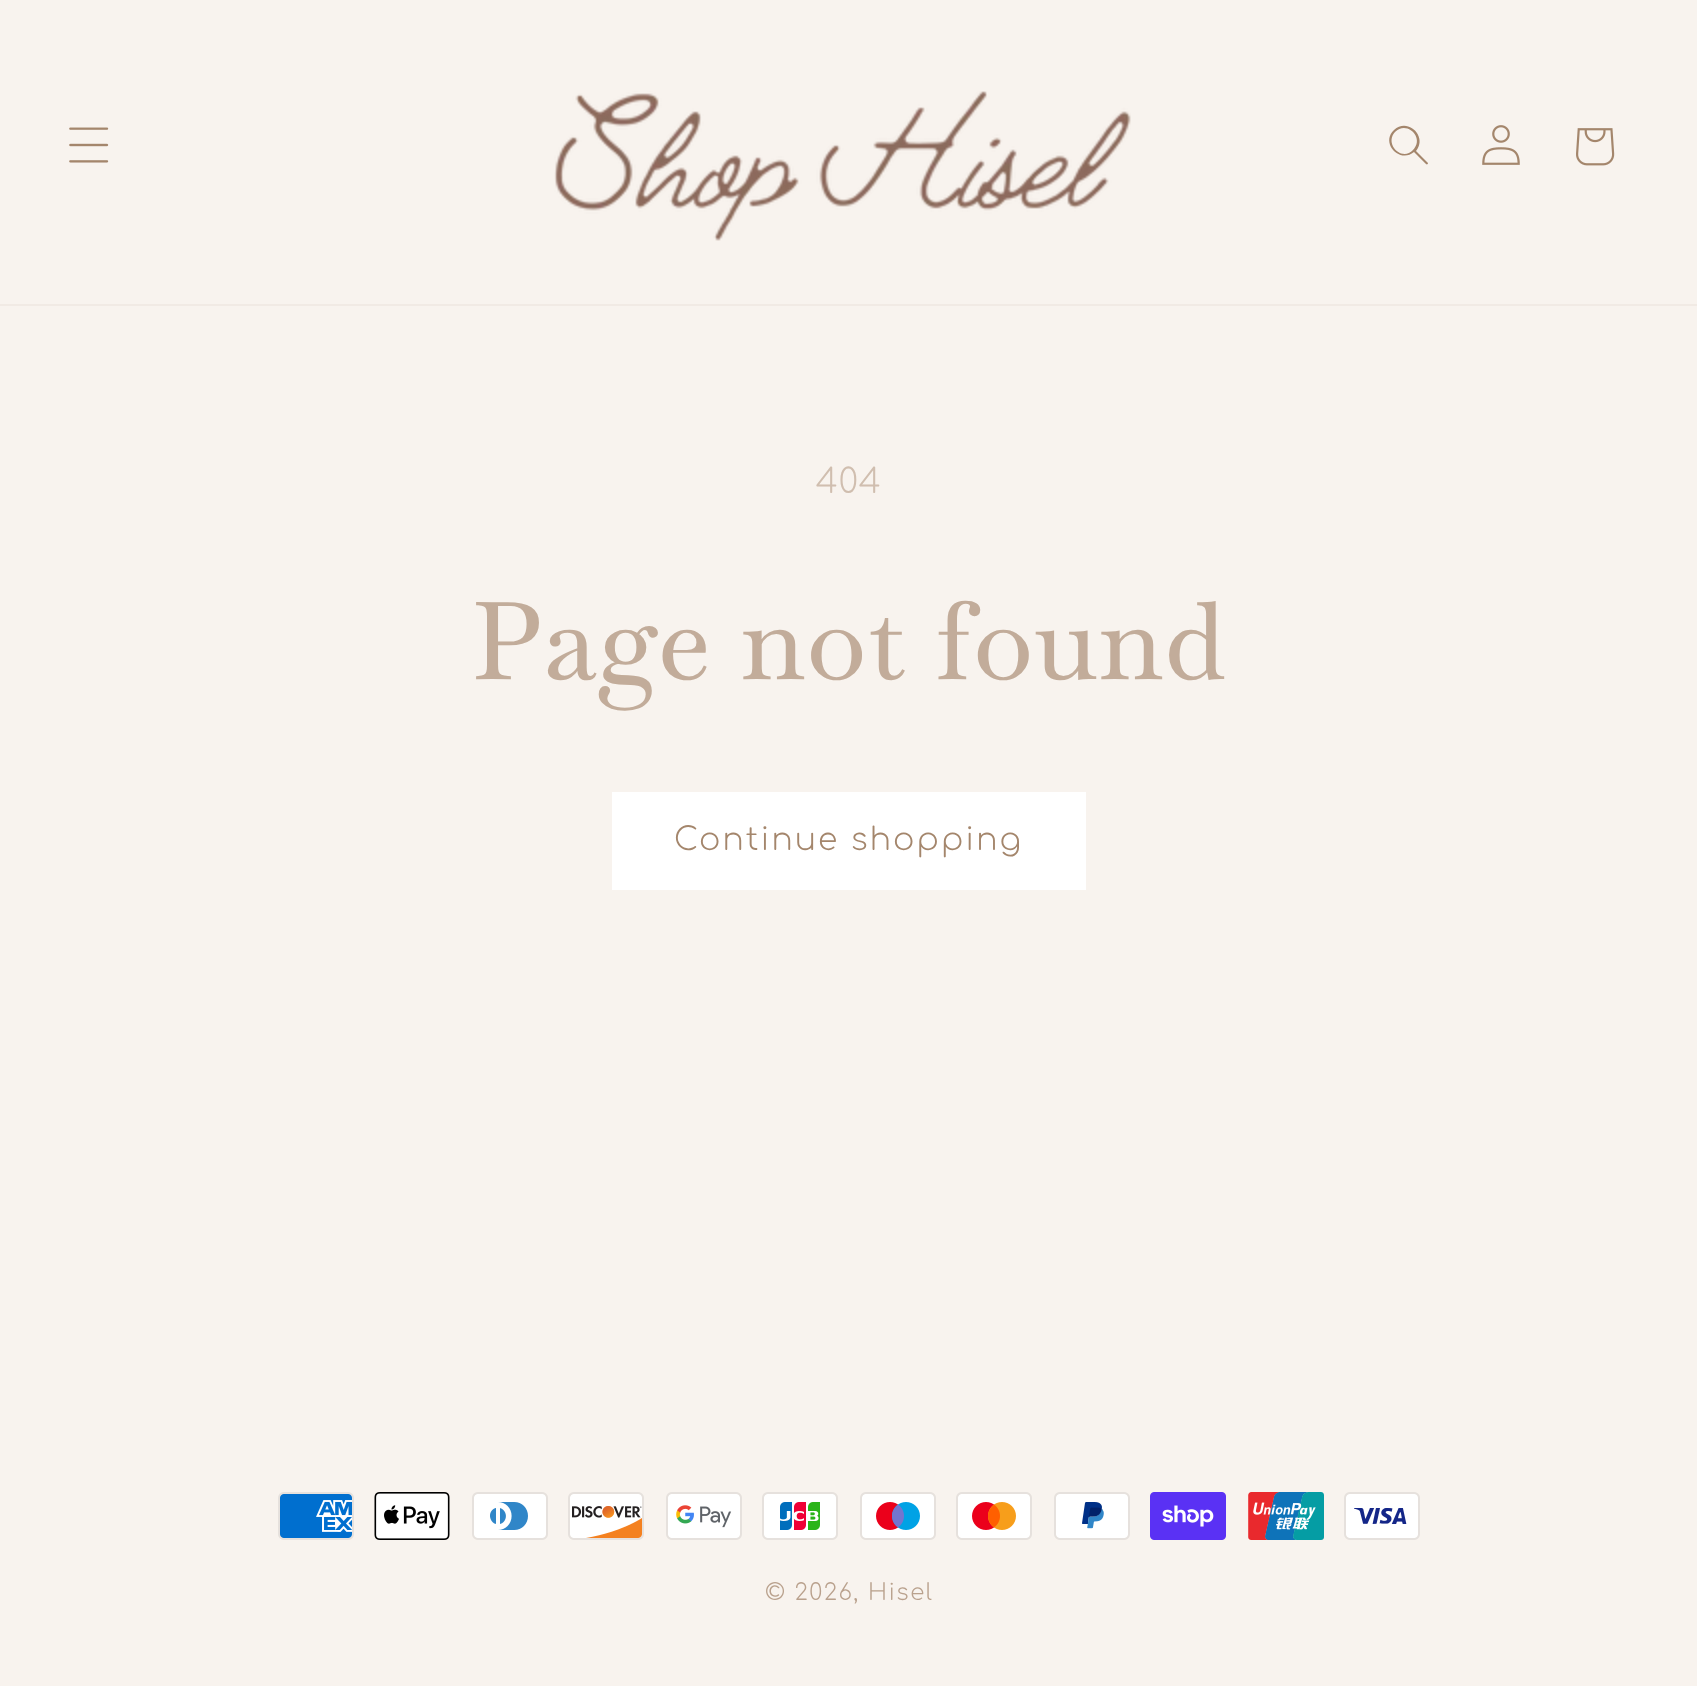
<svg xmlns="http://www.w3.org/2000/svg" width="1697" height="1686">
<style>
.a{font:300 34px Comfortaa;letter-spacing:1px;fill:#d0beaf}
.b{font:500 108px Baskervville;letter-spacing:1.6px;fill:#c2ac9a}
.c{font:300 31.5px Comfortaa;letter-spacing:2.1px;fill:#a4866c}
.d{font:300 23px Comfortaa;letter-spacing:1.5px;fill:#b9a18d}
</style>
<rect width="100%" height="100%" fill="#f8f3ee"/>
<path fill="#f1eae4" d="M0 304h1697v2H0z"/>
<image href="1.png" x="69" y="127" width="40" height="36"/>
<image href="2.png" x="554" y="91" width="577" height="150"/>
<path fill="#a4866c" fill-rule="evenodd" d="M1413 150c-11 12-29-6-18-18c12-12 30 6 18 18m1 2c-14 12-34-9-20-22c14-13 34 7 22 21l12 12c0 1-1 2-2 1z"/>
<image href="3.png" x="1482" y="125" width="38" height="40"/>
<image href="4.png" x="1576" y="128" width="39" height="38"/>
<path fill="#fff" d="M612 792h474v98H612z"/>
<image href="5.png" x="278" y="1492" width="76" height="48"/>
<image href="6.png" x="374" y="1492" width="76" height="48"/>
<image href="7.png" x="472" y="1492" width="76" height="48"/>
<image href="8.png" x="568" y="1492" width="76" height="48"/>
<image href="9.png" x="666" y="1492" width="76" height="48"/>
<image href="10.png" x="762" y="1492" width="76" height="48"/>
<image href="11.png" x="860" y="1492" width="76" height="48"/>
<image href="12.png" x="956" y="1492" width="76" height="48"/>
<image href="13.png" x="1054" y="1492" width="76" height="48"/>
<image href="14.png" x="1150" y="1492" width="76" height="48"/>
<image href="15.png" x="1248" y="1492" width="76" height="48"/>
<image href="16.png" x="1344" y="1492" width="76" height="48"/>
<text class="a" x="816" y="493">404</text>
<text class="b" x="472" y="679">Page not found</text>
<text class="c" x="674" y="850">Continue shopping</text>
<text class="d" x="765" y="1600">© 2026, Hisel</text>
</svg>
